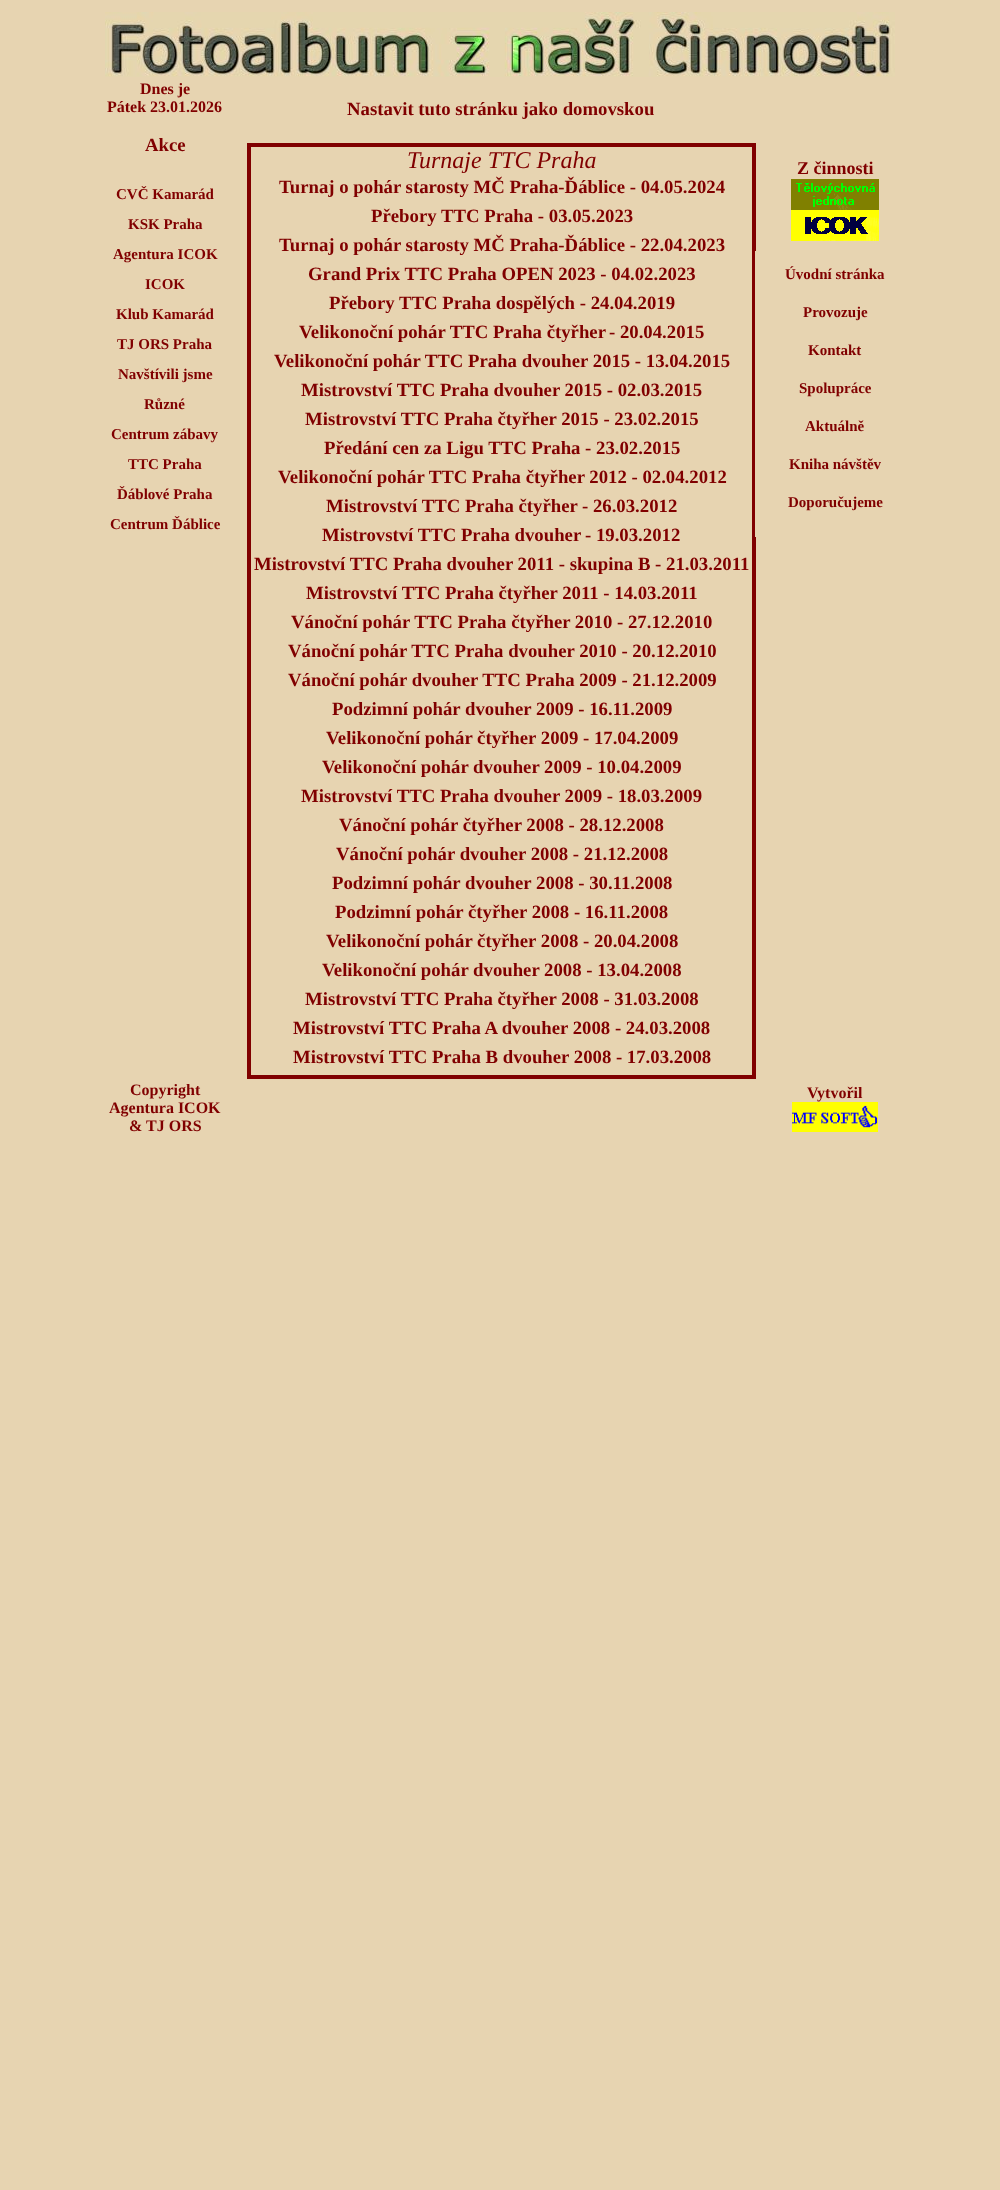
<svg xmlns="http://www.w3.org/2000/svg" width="1000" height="2190">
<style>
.a{font:bold 16px Liberation Serif;fill:#800000}
.b{font:bold 18.75px Liberation Serif;fill:#800000}
.c{font:bold 15px Liberation Serif;fill:#800000}
.d{font:italic 24px Liberation Serif;fill:#800000}
.e{font:bold 18px Liberation Serif;fill:#800000}
</style>
<rect width="100%" height="100%" fill="#e7d4b1"/>
<image href="1.png" x="105" y="12" width="790" height="65"/>
<path fill="none" stroke="#800000" stroke-width="4" d="M249 145h505v932H249z"/>
<image href="2.png" x="791" y="179" width="88" height="31"/>
<image href="3.png" x="791" y="210" width="88" height="31"/>
<path fill="#e7d4b1" d="M755 251h1v286H755z"/>
<image href="4.png" x="792" y="1102" width="86" height="30"/>
<text class="a" x="140" y="94">Dnes je</text>
<text class="a" x="107" y="112">Pátek 23.01.2026</text>
<text class="b" x="145" y="151">Akce</text>
<text class="c" x="116" y="199">CVČ Kamarád</text>
<text class="c" x="128" y="229">KSK Praha</text>
<text class="c" x="113" y="259">Agentura ICOK</text>
<text class="c" x="145" y="289">ICOK</text>
<text class="c" x="116" y="319">Klub Kamarád</text>
<text class="c" x="117" y="349">TJ ORS Praha</text>
<text class="c" x="118" y="379">Navštívili jsme</text>
<text class="c" x="144" y="409">Různé</text>
<text class="c" x="111" y="439">Centrum zábavy</text>
<text class="c" x="128" y="469">TTC Praha</text>
<text class="c" x="117" y="499">Ďáblové Praha</text>
<text class="c" x="110" y="529">Centrum Ďáblice</text>
<text class="b" x="347" y="115">Nastavit tuto stránku jako domovskou</text>
<text class="d" x="407" y="168">Turnaje TTC Praha</text>
<text class="b" x="279" y="193">Turnaj o pohár starosty MČ Praha-Ďáblice - 04.05.2024</text>
<text class="b" x="371" y="222">Přebory TTC Praha - 03.05.2023</text>
<text class="b" x="279" y="251">Turnaj o pohár starosty MČ Praha-Ďáblice - 22.04.2023</text>
<text class="b" x="308" y="280">Grand Prix TTC Praha OPEN 2023 - 04.02.2023</text>
<text class="b" x="329" y="309">Přebory TTC Praha dospělých - 24.04.2019</text>
<text class="b" x="299" y="338">Velikonoční pohár TTC Praha čtyřher</text>
<text class="b" x="609" y="338">- 20.04.2015</text>
<text class="b" x="274" y="367">Velikonoční pohár TTC Praha dvouher 2015 - 13.04.2015</text>
<text class="b" x="301" y="396">Mistrovství TTC Praha dvouher 2015 - 02.03.2015</text>
<text class="b" x="305" y="425">Mistrovství TTC Praha čtyřher 2015 - 23.02.2015</text>
<text class="b" x="324" y="454">Předání cen za Ligu TTC Praha - 23.02.2015</text>
<text class="b" x="278" y="483">Velikonoční pohár TTC Praha čtyřher 2012 - 02.04.2012</text>
<text class="b" x="326" y="512">Mistrovství TTC Praha čtyřher</text>
<text class="b" x="582" y="512">- 26.03.2012</text>
<text class="b" x="322" y="541">Mistrovství TTC Praha dvouher</text>
<text class="b" x="585" y="541">- 19.03.2012</text>
<text class="b" x="254" y="570">Mistrovství TTC Praha dvouher 2011 - skupina B - 21.03.2011</text>
<text class="b" x="306" y="599">Mistrovství TTC Praha čtyřher 2011 - 14.03.2011</text>
<text class="b" x="291" y="628">Vánoční pohár TTC Praha čtyřher 2010 - 27.12.2010</text>
<text class="b" x="288" y="657">Vánoční pohár TTC Praha dvouher 2010 - 20.12.2010</text>
<text class="b" x="288" y="686">Vánoční pohár dvouher TTC Praha 2009 - 21.12.2009</text>
<text class="b" x="332" y="715">Podzimní pohár dvouher 2009 - 16.11.2009</text>
<text class="b" x="326" y="744">Velikonoční pohár čtyřher 2009 - 17.04.2009</text>
<text class="b" x="322" y="773">Velikonoční pohár dvouher 2009 - 10.04.2009</text>
<text class="b" x="301" y="802">Mistrovství TTC Praha dvouher 2009 - 18.03.2009</text>
<text class="b" x="339" y="831">Vánoční pohár čtyřher 2008 - 28.12.2008</text>
<text class="b" x="336" y="860">Vánoční pohár dvouher 2008 - 21.12.2008</text>
<text class="b" x="332" y="889">Podzimní pohár dvouher 2008 - 30.11.2008</text>
<text class="b" x="335" y="918">Podzimní pohár čtyřher 2008 - 16.11.2008</text>
<text class="b" x="326" y="947">Velikonoční pohár čtyřher 2008 - 20.04.2008</text>
<text class="b" x="322" y="976">Velikonoční pohár dvouher 2008 - 13.04.2008</text>
<text class="b" x="305" y="1005">Mistrovství TTC Praha čtyřher 2008 - 31.03.2008</text>
<text class="b" x="293" y="1034">Mistrovství TTC Praha A dvouher 2008 - 24.03.2008</text>
<text class="b" x="293" y="1063">Mistrovství TTC Praha B dvouher 2008 - 17.03.2008</text>
<text class="e" x="797" y="174">Z činnosti</text>
<text class="c" x="785" y="279">Úvodní stránka</text>
<text class="c" x="803" y="317">Provozuje</text>
<text class="c" x="808" y="355">Kontakt</text>
<text class="c" x="799" y="393">Spolupráce</text>
<text class="c" x="805" y="431">Aktuálně</text>
<text class="c" x="789" y="469">Kniha návštěv</text>
<text class="c" x="788" y="507">Doporučujeme</text>
<text class="a" x="130" y="1095">Copyright</text>
<text class="a" x="109" y="1113">Agentura ICOK</text>
<text class="a" x="129" y="1131">&amp; TJ ORS</text>
<text class="a" x="807" y="1098">Vytvořil</text>
</svg>
